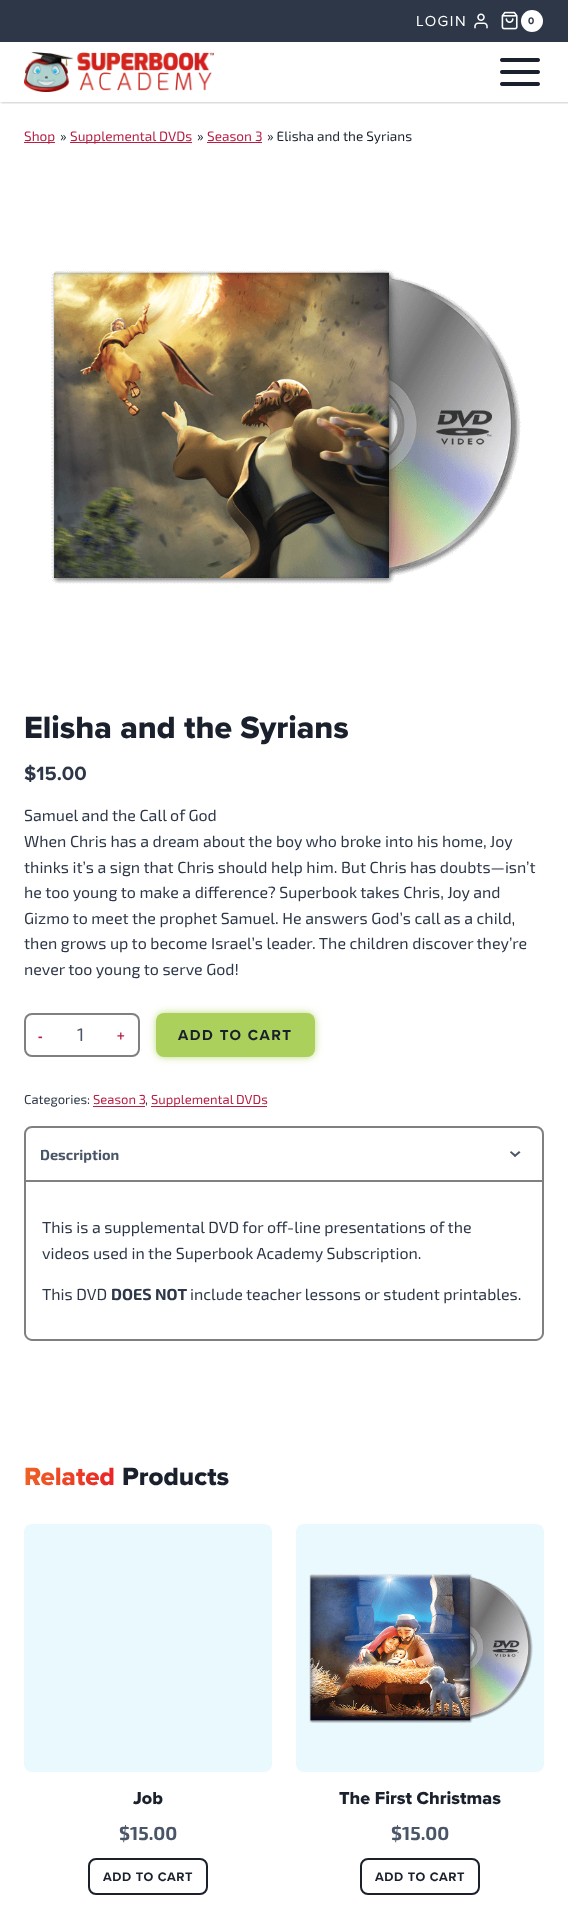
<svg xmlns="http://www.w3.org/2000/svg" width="568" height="1915">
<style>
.a{font:15px Proxima Nova;letter-spacing:1.5px;fill:#fff}
.b{font:bold 10px Proxima Nova;letter-spacing:2px;fill:#2d3748}
.c{font:13.6px 'Exo 2';fill:#b71f44}
.d{font:13.6px 'Exo 2';fill:#1a202c}
.e{font:800 32px Proxima Nova;fill:#1a202c}
.f{font:bold 20px Proxima Nova;fill:#2d3748}
.g{font:16px 'Exo 2';fill:#2d3748}
.h{font:bold 15px Proxima Nova;letter-spacing:1.5px;fill:#b71f44}
.i{font:18px 'Exo 2';fill:#4a5568}
.j{font:bold 15px Proxima Nova;letter-spacing:1.5px;fill:#1a202c}
.k{font:13px 'Exo 2';fill:#2d3748}
.l{font:13px 'Exo 2';fill:#b71f44}
.m{font:bold 14.5px 'Exo 2';fill:#4a5568}
.n{font:bold 16px 'Exo 2';fill:#2d3748}
.o{font:800 26px Proxima Nova;fill:url(#g1)}
.p{font:800 26px Proxima Nova;fill:#1a202c}
.q{font:800 18px Proxima Nova;fill:#1a202c}
.r{font:bold 19px 'Exo 2';fill:#4a5568}
.s{font:bold 12.75px Proxima Nova;letter-spacing:0.6px;fill:#1a202c}
</style>
<defs>
<clipPath id="clip1"><path d="M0 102h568v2H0z"/></clipPath>
<linearGradient id="g1" gradientUnits="userSpaceOnUse" x1="24" y1="1476" x2="115" y2="1476"><stop offset="0" stop-color="#ef6223"/><stop offset="1" stop-color="#ea2227"/></linearGradient>
</defs>
<rect width="100%" height="100%" fill="#fff"/>
<path fill="#2d3748" d="M0 0h568v42H0z"/>
<image href="1.png" x="474" y="13" width="14" height="16"/>
<image href="2.png" x="501" y="11" width="17" height="19"/>
<circle fill="#fff" cx="532" cy="21" r="11"/>
<g clip-path="url(#clip1)">
<path fill="#00000033" filter="blur(1px)" d="M1 43h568v60H1z"/>
</g>
<image href="3.png" x="24" y="52" width="190" height="40"/>
<image href="4.png" x="500" y="58" width="40" height="28"/>
<path fill="#b71f44" d="M24 142h31v1H24z"/>
<path fill="#b71f44" d="M70 142h122v1H70z"/>
<path fill="#b71f44" d="M207 142h55v1H207z"/>
<image href="5.png" x="51" y="269" width="470" height="315"/>
<rect fill="none" stroke="#808080" stroke-width="2" x="25" y="1014" width="114" height="42" rx="7"/>
<rect fill="#abd15c" filter="blur(4.5px)" x="157" y="1014" width="157" height="42" rx="7"/>
<rect fill="#abd15c" x="156" y="1013" width="159" height="44" rx="8"/>
<path fill="#b71f44" d="M93 1106h52v1H93z"/>
<path fill="#b71f44" d="M151 1106h116v1H151z"/>
<path fill="none" stroke="#808080" stroke-width="2" d="M32 1127h504c4 0 7 3 7 7v47h-518v-47c0-4 3-7 7-7z"/>
<path fill="#4a5568" d="M511 1151l5.5 4.5l-1.5 1.5l-5-4.5z"/>
<path fill="#4a5568" d="M514 1155.5l5-4.5l1.5 1.5l-5.5 4.5z"/>
<path fill="#808080" fill-rule="evenodd" d="M24 1182h520v151c0 4-4 8-8 8h-504c-4 0-8-4-8-8zm2 0h516v151c0 3-3 6-6 6h-504c-3 0-6-3-6-6z"/>
<rect fill="#e9f9fd" x="24" y="1524" width="248" height="248" rx="8"/>
<rect fill="none" stroke="#1a202c" stroke-width="2" x="89" y="1859" width="118" height="35" rx="7"/>
<rect fill="#e9f9fd" x="296" y="1524" width="248" height="248" rx="8"/>
<image href="6.png" x="309" y="1573" width="224" height="151"/>
<rect fill="none" stroke="#1a202c" stroke-width="2" x="361" y="1859" width="118" height="35" rx="7"/>
<text class="a" x="416" y="26">LOGIN</text>
<text class="b" x="528" y="24">0</text>
<text class="c" x="24" y="141">Shop</text>
<text class="d" x="60" y="141">»</text>
<text class="c" x="70" y="141">Supplemental DVDs</text>
<text class="d" x="197" y="141">»</text>
<text class="c" x="207" y="141">Season 3</text>
<text class="d" x="267" y="141">» Elisha and the Syrians</text>
<text class="e" x="24" y="738">Elisha and the Syrians</text>
<text class="f" x="24" y="780">$15.00</text>
<text class="g" x="24" y="821">Samuel and the Call of God</text>
<text class="g" x="24" y="847">When Chris has a dream about the boy who broke into his home, Joy</text>
<text class="g" x="24" y="873">thinks it’s a sign that Chris should help him. But Chris has doubts—isn’t</text>
<text class="g" x="24" y="898">he too young to make a difference? Superbook takes Chris, Joy and</text>
<text class="g" x="24" y="924">Gizmo to meet the prophet Samuel. He answers God’s call as a child,</text>
<text class="g" x="24" y="949">then grows up to become Israel’s leader. The children discover they’re</text>
<text class="g" x="24" y="975">never too young to serve God!</text>
<text class="h" x="38" y="1041">-</text>
<text class="i" x="77" y="1041">1</text>
<text class="h" x="117" y="1041">+</text>
<text class="j" x="178" y="1040">ADD TO CART</text>
<text class="k" x="24" y="1104">Categories:</text>
<text class="l" x="93" y="1104">Season 3</text>
<text class="k" x="145" y="1104">,</text>
<text class="l" x="151" y="1104">Supplemental DVDs</text>
<text class="m" x="40" y="1160">Description</text>
<text class="g" x="42" y="1233">This is a supplemental DVD for off-line presentations of the</text>
<text class="g" x="42" y="1259">videos used in the Superbook Academy Subscription.</text>
<text class="g" x="42" y="1300">This DVD</text>
<text class="n" x="111" y="1300">DOES NOT</text>
<text class="g" x="190" y="1300">include teacher lessons or student printables.</text>
<text class="o" x="24" y="1485">Related</text>
<text class="p" x="122" y="1485">Products</text>
<text class="q" x="133" y="1804">Job</text>
<text class="r" x="119" y="1840">$15.00</text>
<text class="s" x="103" y="1881">ADD TO CART</text>
<text class="q" x="339" y="1804">The First Christmas</text>
<text class="r" x="391" y="1840">$15.00</text>
<text class="s" x="375" y="1881">ADD TO CART</text>
</svg>
